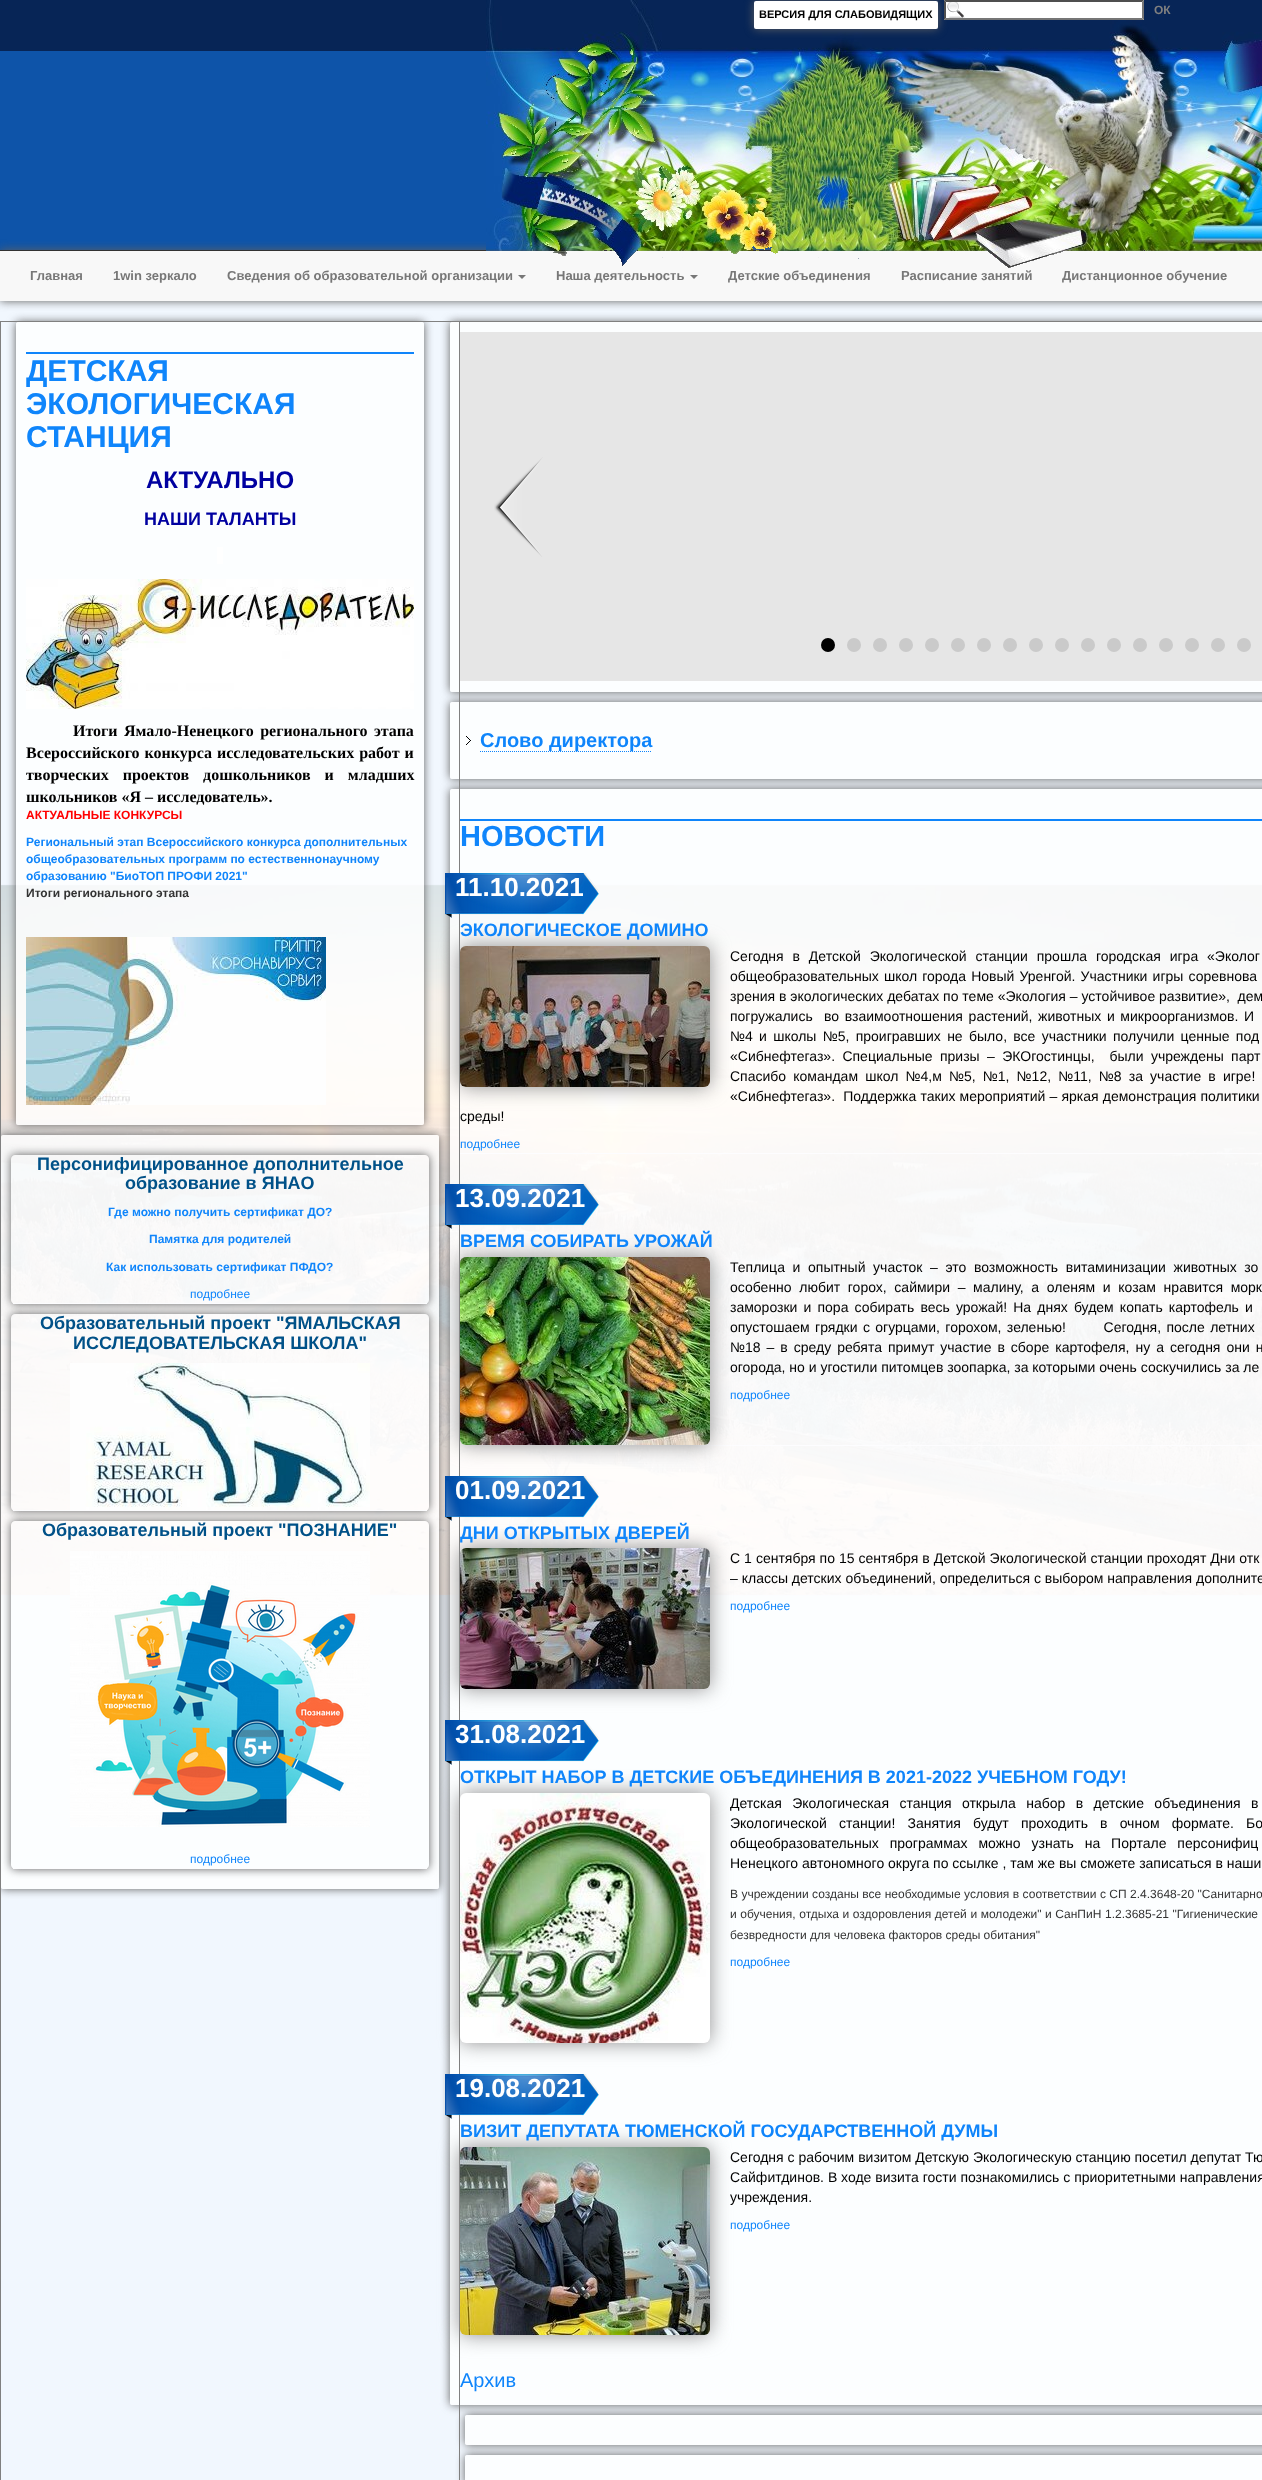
<svg xmlns="http://www.w3.org/2000/svg" width="1262" height="2480">
<style>
.a{font:bold 11px Liberation Sans;fill:#000}
.b{font:bold 12px Liberation Sans;fill:#808080}
.c{font:bold 13px Liberation Sans;fill:#777}
.d{font:bold 30px Liberation Sans;fill:#0f85fb}
.e{font:bold 24px Liberation Sans;fill:#0000a0}
.f{font:bold 18px Liberation Sans;fill:#0000a0}
.g{font:bold 16px Liberation Serif;fill:#000}
.h{font:bold 12px Liberation Sans;fill:#f00}
.i{font:bold 12px Liberation Sans;fill:#0f85fb}
.j{font:bold 12px Liberation Sans;fill:#333}
.k{font:bold 18px Liberation Sans;fill:#005188}
.l{font:12px Liberation Sans;fill:#0f85fb}
.m{font:bold 20px Liberation Sans;fill:#0f85fb}
.n{font:bold 29px Liberation Sans;fill:#0f85fb}
.o{font:bold 26px Liberation Sans;fill:#fff}
.p{font:bold 18px Liberation Sans;fill:#0f85fb}
.q{font:14px Liberation Sans;fill:#000}
.r{font:12px Liberation Sans;fill:#333}
.s{font:20px Liberation Sans;fill:#0f85fb}
</style>
<defs>
<clipPath id="clip1"><path d="M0 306h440v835h-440zm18 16h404c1 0 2 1 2 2v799c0 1-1 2-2 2h-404c-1 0-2-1-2-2v-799c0-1 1-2 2-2z" clip-rule="evenodd"/></clipPath>
<clipPath id="clip2"><path d="M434 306h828v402h-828zm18 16h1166c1 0 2 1 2 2v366c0 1-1 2-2 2h-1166c-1 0-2-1-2-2v-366c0-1 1-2 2-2z" clip-rule="evenodd"/></clipPath>
<clipPath id="clip3"><path d="M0 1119h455v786h-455zm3 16h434c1 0 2 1 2 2v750c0 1-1 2-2 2h-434c-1 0-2-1-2-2v-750c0-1 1-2 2-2z" clip-rule="evenodd"/></clipPath>
<clipPath id="clip4"><path d="M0 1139h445v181h-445zm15 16h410c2 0 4 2 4 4v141c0 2-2 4-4 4h-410c-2 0-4-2-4-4v-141c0-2 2-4 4-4z" clip-rule="evenodd"/></clipPath>
<clipPath id="clip5"><path d="M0 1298h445v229h-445zm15 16h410c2 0 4 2 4 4v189c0 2-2 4-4 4h-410c-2 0-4-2-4-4v-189c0-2 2-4 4-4z" clip-rule="evenodd"/></clipPath>
<clipPath id="clip6"><path d="M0 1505h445v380h-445zm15 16h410c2 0 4 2 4 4v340c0 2-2 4-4 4h-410c-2 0-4-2-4-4v-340c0-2 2-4 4-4z" clip-rule="evenodd"/></clipPath>
<clipPath id="clip7"><path d="M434 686h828v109h-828zm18 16h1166c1 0 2 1 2 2v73c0 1-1 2-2 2h-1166c-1 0-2-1-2-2v-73c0-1 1-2 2-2z" clip-rule="evenodd"/></clipPath>
<clipPath id="clip8"><path d="M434 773h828v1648h-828zm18 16h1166c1 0 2 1 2 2v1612c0 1-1 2-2 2h-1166c-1 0-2-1-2-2v-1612c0-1 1-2 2-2z" clip-rule="evenodd"/></clipPath>
<clipPath id="clip9"><path d="M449 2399h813v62h-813zm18 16h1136c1 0 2 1 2 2v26c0 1-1 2-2 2h-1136c-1 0-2-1-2-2v-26c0-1 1-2 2-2z" clip-rule="evenodd"/></clipPath>
<clipPath id="clip10"><path d="M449 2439h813v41h-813zm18 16h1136c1 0 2 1 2 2v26c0 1-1 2-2 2h-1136c-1 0-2-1-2-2v-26c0-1 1-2 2-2z" clip-rule="evenodd"/></clipPath>
</defs>
<rect width="100%" height="100%" fill="#f1f7fe"/>
<image href="1.png" x="1" y="884" width="1261" height="712"/>
<image href="2.png" x="0" y="0" width="772" height="250"/>
<path fill="#606060" filter="blur(5px)" d="M0 250h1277v51H0z"/>
<path fill="#f8f8f8" d="M0 251h1262v50H0z"/>
<path fill="#333" d="M0 250h1145v1H0z"/>
<image href="3.png" x="486" y="0" width="776" height="268"/>
<rect fill="#606060" filter="blur(5px)" x="754" y="1" width="184" height="28" rx="2"/>
<rect fill="#fff" x="754" y="1" width="184" height="28" rx="2"/>
<path fill="#fff" d="M944 0h200v20H944z"/>
<image href="4.png" x="947" y="2" width="18" height="16"/>
<path fill="#4f4f4f" d="M944 0h200l-2 2h-196z"/>
<path fill="#767676" d="M1144 0v20l-2-2v-16z"/>
<path fill="#767676" d="M1144 20h-200l2-2h196z"/>
<path fill="#4f4f4f" d="M944 20v-20l2 2v16z"/>
<path fill="#777" d="M518 275h8l-4 4z"/>
<path fill="#777" d="M690 275h8l-4 4z"/>
<g clip-path="url(#clip1)">
<rect fill="#606060" filter="blur(5px)" x="16" y="322" width="408" height="803" rx="2"/>
</g>
<g clip-path="url(#clip2)">
<rect fill="#606060" filter="blur(5px)" x="450" y="322" width="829" height="370" rx="2"/>
</g>
<path fill="#808080" d="M0 321h1262v1H0z"/>
<rect fill="#ffffffcc" x="16" y="322" width="408" height="803" rx="2"/>
<g clip-path="url(#clip3)">
<rect fill="#606060" filter="blur(5px)" x="1" y="1135" width="438" height="754" rx="2"/>
</g>
<rect fill="#ffffffcc" x="1" y="1135" width="438" height="754" rx="2"/>
<g clip-path="url(#clip4)">
<rect fill="#606060" filter="blur(5px)" x="11" y="1155" width="418" height="149" rx="4"/>
</g>
<path fill="#fdfdff" d="M13 1303h414v1H13z"/>
<g clip-path="url(#clip5)">
<rect fill="#606060" filter="blur(5px)" x="11" y="1314" width="418" height="197" rx="4"/>
</g>
<path fill="#fdfdff" d="M13 1510h414v1H13z"/>
<g clip-path="url(#clip6)">
<rect fill="#606060" filter="blur(5px)" x="11" y="1521" width="418" height="348" rx="4"/>
</g>
<path fill="#808080" d="M0 321h1v2159H0z"/>
<path fill="#0f85fb" d="M26 352h388v2H26z"/>
<path fill="#fff" d="M217 547h6v17H217z"/>
<image href="5.png" x="26" y="579" width="388" height="130"/>
<image href="6.png" x="26" y="937" width="300" height="168"/>
<image href="7.png" x="70" y="1363" width="300" height="147"/>
<path fill="#fdfdff" d="M13 1868h414v1H13z"/>
<image href="8.png" x="70" y="1551" width="300" height="276"/>
<rect fill="#ffffffcc" x="450" y="322" width="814" height="370" rx="2"/>
<g clip-path="url(#clip7)">
<rect fill="#606060" filter="blur(5px)" x="450" y="702" width="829" height="77" rx="2"/>
</g>
<rect fill="#ffffffcc" x="450" y="702" width="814" height="77" rx="2"/>
<g clip-path="url(#clip8)">
<rect fill="#606060" filter="blur(5px)" x="450" y="789" width="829" height="1616" rx="2"/>
</g>
<rect fill="#ffffffcc" x="450" y="789" width="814" height="1616" rx="2"/>
<g clip-path="url(#clip9)">
<rect fill="#606060" filter="blur(5px)" x="465" y="2415" width="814" height="30" rx="2"/>
</g>
<rect fill="#ffffffcc" x="465" y="2415" width="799" height="30" rx="2"/>
<g clip-path="url(#clip10)">
<rect fill="#606060" filter="blur(5px)" x="465" y="2455" width="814" height="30" rx="2"/>
</g>
<path fill="#808080" d="M459 321h1v2159H459z"/>
<path fill="#e6e6e6" d="M460 332h802v349H460z"/>
<image href="9.png" x="494" y="457" width="49" height="100"/>
<circle fill="#000" cx="828" cy="645" r="7"/>
<circle fill="#cacaca" cx="854" cy="645" r="7"/>
<circle fill="#cacaca" cx="880" cy="645" r="7"/>
<circle fill="#cacaca" cx="906" cy="645" r="7"/>
<circle fill="#cacaca" cx="932" cy="645" r="7"/>
<circle fill="#cacaca" cx="958" cy="645" r="7"/>
<circle fill="#cacaca" cx="984" cy="645" r="7"/>
<circle fill="#cacaca" cx="1010" cy="645" r="7"/>
<circle fill="#cacaca" cx="1036" cy="645" r="7"/>
<circle fill="#cacaca" cx="1062" cy="645" r="7"/>
<circle fill="#cacaca" cx="1088" cy="645" r="7"/>
<circle fill="#cacaca" cx="1114" cy="645" r="7"/>
<circle fill="#cacaca" cx="1140" cy="645" r="7"/>
<circle fill="#cacaca" cx="1166" cy="645" r="7"/>
<circle fill="#cacaca" cx="1192" cy="645" r="7"/>
<circle fill="#cacaca" cx="1218" cy="645" r="7"/>
<circle fill="#cacaca" cx="1244" cy="645" r="7"/>
<image href="10.png" x="466" y="736" width="5" height="9"/>
<path fill="none" stroke="#0f85fb" stroke-dasharray="1 1" d="M480 751.5h172"/>
<path fill="#0f85fb" d="M460 819h802v2H460z"/>
<path fill="#fdfdff" d="M460 1153h802v1H460z"/>
<image href="11.png" x="445" y="873" width="154" height="45"/>
<rect fill="#909090" filter="blur(10px)" x="460" y="946" width="250" height="141" rx="6"/>
<image href="12.png" x="460" y="946" width="250" height="141"/>
<path fill="#fdfdff" d="M460 1445h802v1H460z"/>
<image href="13.png" x="445" y="1184" width="154" height="45"/>
<rect fill="#909090" filter="blur(10px)" x="460" y="1257" width="250" height="188" rx="6"/>
<image href="14.png" x="460" y="1257" width="250" height="188"/>
<image href="15.png" x="445" y="1476" width="154" height="45"/>
<rect fill="#909090" filter="blur(10px)" x="460" y="1548" width="250" height="141" rx="6"/>
<image href="16.png" x="460" y="1548" width="250" height="141"/>
<image href="17.png" x="445" y="1720" width="154" height="45"/>
<rect fill="#909090" filter="blur(10px)" x="460" y="1793" width="250" height="250" rx="6"/>
<image href="18.png" x="460" y="1793" width="250" height="250"/>
<image href="19.png" x="445" y="2074" width="154" height="45"/>
<rect fill="#909090" filter="blur(10px)" x="460" y="2147" width="250" height="188" rx="6"/>
<image href="20.png" x="460" y="2147" width="250" height="188"/>
<rect fill="#ffffffcc" x="465" y="2455" width="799" height="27" rx="2"/>
<text class="a" x="759" y="18">ВЕРСИЯ ДЛЯ СЛАБОВИДЯЩИХ</text>
<text class="b" x="1154" y="14">ОК</text>
<text class="c" x="30" y="280">Главная</text>
<text class="c" x="113" y="280">1win зеркало</text>
<text class="c" x="227" y="280">Сведения об образовательной организации</text>
<text class="c" x="556" y="280">Наша деятельность</text>
<text class="c" x="728" y="280">Детские объединения</text>
<text class="c" x="901" y="280">Расписание занятий</text>
<text class="c" x="1062" y="280">Дистанционное обучение</text>
<text class="d" x="26" y="381">ДЕТСКАЯ</text>
<text class="d" x="26" y="414">ЭКОЛОГИЧЕСКАЯ</text>
<text class="d" x="26" y="447">СТАНЦИЯ</text>
<text class="e" x="146" y="488">АКТУАЛЬНО</text>
<text class="f" x="144" y="525">НАШИ ТАЛАНТЫ</text>
<text class="g" x="73" y="736" word-spacing="2.4">Итоги Ямало-Ненецкого регионального этапа</text>
<text class="g" x="26" y="758" word-spacing="1">Всероссийского конкурса исследовательских работ и</text>
<text class="g" x="26" y="780" word-spacing="10">творческих проектов дошкольников и младших</text>
<text class="g" x="26" y="802">школьников «Я – исследователь».</text>
<text class="h" x="26" y="819">АКТУАЛЬНЫЕ КОНКУРСЫ</text>
<text class="i" x="26" y="846">Региональный этап Всероссийского конкурса дополнительных</text>
<text class="i" x="26" y="863">общеобразовательных программ по естественнонаучному</text>
<text class="i" x="26" y="880">образованию "БиоТОП ПРОФИ 2021"</text>
<text class="j" x="26" y="897">Итоги регионального этапа</text>
<text class="k" x="37" y="1170">Персонифицированное дополнительное</text>
<text class="k" x="125" y="1189">образование в ЯНАО</text>
<text class="i" x="108" y="1216">Где можно получить сертификат ДО?</text>
<text class="i" x="149" y="1243">Памятка для родителей</text>
<text class="i" x="106" y="1271">Как использовать сертификат ПФДО?</text>
<text class="l" x="190" y="1298">подробнее</text>
<text class="k" x="40" y="1329">Образовательный проект "ЯМАЛЬСКАЯ</text>
<text class="k" x="73" y="1349">ИССЛЕДОВАТЕЛЬСКАЯ ШКОЛА"</text>
<text class="k" x="42" y="1536">Образовательный проект "ПОЗНАНИЕ"</text>
<text class="l" x="190" y="1863">подробнее</text>
<text class="m" x="480" y="747">Слово директора</text>
<text class="n" x="460" y="846">НОВОСТИ</text>
<text class="o" x="455" y="896">11.10.2021</text>
<text class="p" x="460" y="936">ЭКОЛОГИЧЕСКОЕ ДОМИНО</text>
<text class="q" x="730" y="961" word-spacing="5">Сегодня в Детской Экологической станции прошла городская игра «Эколог</text>
<text class="q" x="730" y="981" word-spacing="1.25">общеобразовательных школ города Новый Уренгой. Участники игры соревнова</text>
<text class="q" xml:space="preserve" x="730" y="1001">зрения в экологических дебатах по теме «Экология – устойчивое развитие»,  дем</text>
<text class="q" xml:space="preserve" x="730" y="1021" word-spacing="1.75">погружались  во взаимоотношения растений, животных и микроорганизмов. И</text>
<text class="q" x="730" y="1041" word-spacing="2.4">№4 и школы №5, проигравших не было, все участники получили ценные под</text>
<text class="q" xml:space="preserve" x="730" y="1061" word-spacing="3.5">«Сибнефтегаз». Специальные призы – ЭКОгостинцы,  были учреждены парт</text>
<text class="q" x="730" y="1081" word-spacing="3.25">Спасибо командам школ №4,м №5, №1, №12, №11, №8 за участие в игре!</text>
<text class="q" xml:space="preserve" x="730" y="1101" word-spacing="0.25">«Сибнефтегаз».  Поддержка таких мероприятий – яркая демонстрация политики</text>
<text class="q" x="460" y="1121">среды!</text>
<text class="l" x="460" y="1148">подробнее</text>
<text class="o" x="455" y="1207">13.09.2021</text>
<text class="p" x="460" y="1247">ВРЕМЯ СОБИРАТЬ УРОЖАЙ</text>
<text class="q" x="730" y="1272" word-spacing="3.75">Теплица и опытный участок – это возможность витаминизации животных зо</text>
<text class="q" x="730" y="1292" word-spacing="3.75">особенно любит горох, саймири – малину, а оленям и козам нравится морк</text>
<text class="q" x="730" y="1312" word-spacing="2.25">заморозки и пора собирать весь урожай! На днях будем копать картофель и</text>
<text class="q" xml:space="preserve" x="730" y="1332" word-spacing="1.5">опустошаем грядки с огурцами, горохом, зеленью!       Сегодня, после летних</text>
<text class="q" x="730" y="1352" word-spacing="2.1">№18 – в среду ребята примут участие в сборе картофеля, ну а сегодня они н</text>
<text class="q" x="730" y="1372">огорода, но и угостили питомцев зоопарка, за которыми очень соскучились за ле</text>
<text class="l" x="730" y="1399">подробнее</text>
<text class="o" x="455" y="1499">01.09.2021</text>
<text class="p" x="460" y="1539">ДНИ ОТКРЫТЫХ ДВЕРЕЙ</text>
<text class="q" x="730" y="1563" word-spacing="0.1">С 1 сентября по 15 сентября в Детской Экологической станции проходят Дни отк</text>
<text class="q" x="730" y="1583">– классы детских объединений, определиться с выбором направления дополните</text>
<text class="l" x="730" y="1610">подробнее</text>
<text class="o" x="455" y="1743">31.08.2021</text>
<text class="p" x="460" y="1783">ОТКРЫТ НАБОР В ДЕТСКИЕ ОБЪЕДИНЕНИЯ В 2021-2022 УЧЕБНОМ ГОДУ!</text>
<text class="q" x="730" y="1808" word-spacing="6.5">Детская Экологическая станция открыла набор в детские объединения в</text>
<text class="q" x="730" y="1828" word-spacing="8.25">Экологической станции! Занятия будут проходить в очном формате. Бо</text>
<text class="q" x="730" y="1848" word-spacing="7">общеобразовательных программах можно узнать на Портале персонифиц</text>
<text class="q" x="730" y="1868">Ненецкого автономного округа по ссылке , там же вы сможете записаться в наши</text>
<text class="r" x="730" y="1898" word-spacing="0.1">В учреждении созданы все необходимые условия в соответствии с СП 2.4.3648-20 "Санитарно</text>
<text class="r" x="730" y="1918" word-spacing="0.25">и обучения, отдыха и оздоровления детей и молодежи" и СанПиН 1.2.3685-21 "Гигиенические</text>
<text class="r" x="730" y="1939">безвредности для человека факторов среды обитания"</text>
<text class="l" x="730" y="1966">подробнее</text>
<text class="o" x="455" y="2097">19.08.2021</text>
<text class="p" x="460" y="2137">ВИЗИТ ДЕПУТАТА ТЮМЕНСКОЙ ГОСУДАРСТВЕННОЙ ДУМЫ</text>
<text class="q" x="730" y="2162">Сегодня с рабочим визитом Детскую Экологическую станцию посетил депутат Тю</text>
<text class="q" x="730" y="2182">Сайфитдинов. В ходе визита гости познакомились с приоритетными направления</text>
<text class="q" x="730" y="2202">учреждения.</text>
<text class="l" x="730" y="2229">подробнее</text>
<text class="s" x="460" y="2387">Архив</text>
</svg>
